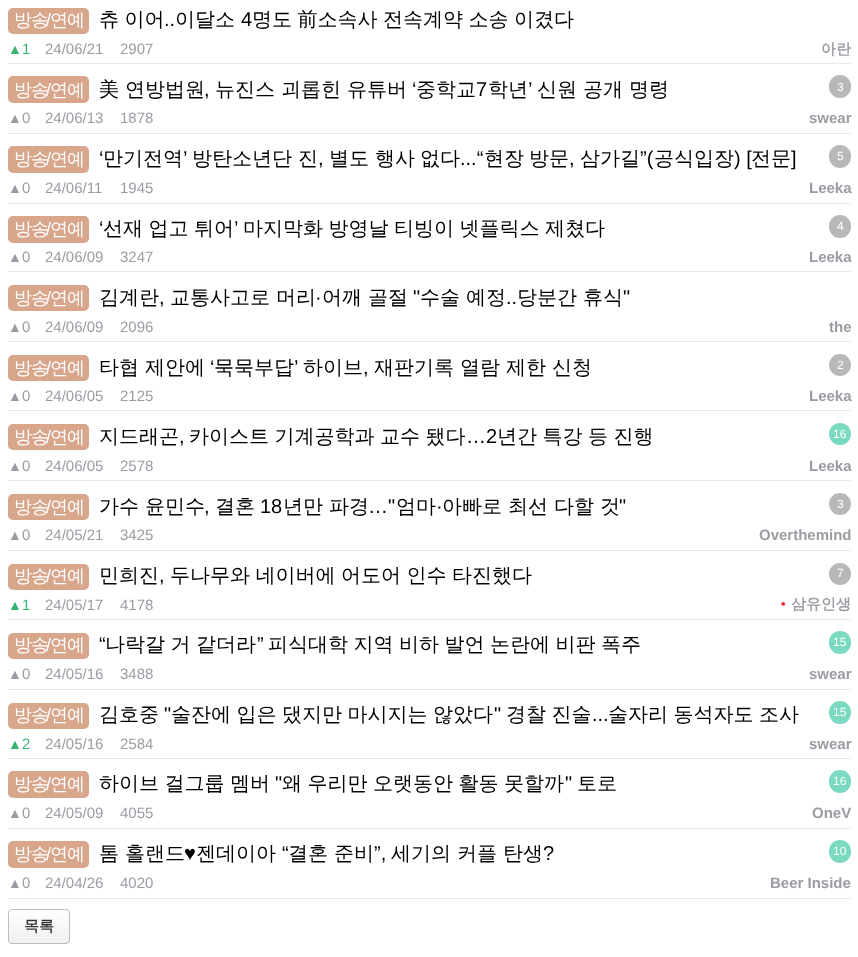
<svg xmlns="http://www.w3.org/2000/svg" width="858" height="957">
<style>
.a{font:500 18px WenQuanYi Zen Hei;letter-spacing:-1px;fill:#fff}
.b{font:18px Liberation Sans;letter-spacing:-1px;fill:#fff}
.c{font:500 20px WenQuanYi Zen Hei;fill:#000}
.d{font:20px Liberation Sans;fill:#000}
.e{font:14px Liberation Sans;fill:#36b371}
.f{font:15px Liberation Sans;fill:#36b371}
.g{font:15px Liberation Sans;fill:#9a9ca3}
.h{font:bold 15px WenQuanYi Zen Hei;fill:#9a9ca3}
.i{font:12px Liberation Sans;fill:#fff}
.j{font:14px Liberation Sans;fill:#9a9ca3}
.k{font:bold 15px Liberation Sans;fill:#9a9ca3}
.l{font:bold 15px WenQuanYi Zen Hei;fill:#333}
</style>
<defs>
<clipPath id="clip1"><rect x="8" y="909" width="62" height="35" rx="4"/></clipPath>
<linearGradient id="g1" gradientUnits="userSpaceOnUse" x1="9" y1="910" x2="9" y2="943"><stop offset="0" stop-color="#fff"/><stop offset="1" stop-color="#f0f0f0"/></linearGradient>
</defs>
<rect width="100%" height="100%" fill="#fff"/>
<path fill="#e9e9e9" d="M8 63h843v1H8z"/>
<rect fill="#d7a68b" x="8" y="8" width="81" height="26" rx="5"/>
<path fill="#e9e9e9" d="M8 133h843v1H8z"/>
<rect fill="#d7a68b" x="8" y="76" width="81" height="27" rx="5"/>
<rect fill="#b8b8b8" x="829" y="75" width="22" height="23" rx="11"/>
<path fill="#e9e9e9" d="M8 203h843v1H8z"/>
<rect fill="#d7a68b" x="8" y="146" width="81" height="27" rx="5"/>
<rect fill="#b8b8b8" x="829" y="145" width="22" height="23" rx="11"/>
<path fill="#e9e9e9" d="M8 271h843v1H8z"/>
<rect fill="#d7a68b" x="8" y="216" width="81" height="27" rx="5"/>
<rect fill="#b8b8b8" x="829" y="215" width="22" height="23" rx="11"/>
<path fill="#e9e9e9" d="M8 341h843v1H8z"/>
<rect fill="#d7a68b" x="8" y="285" width="81" height="26" rx="5"/>
<path fill="#e9e9e9" d="M8 410h843v1H8z"/>
<rect fill="#d7a68b" x="8" y="355" width="81" height="26" rx="5"/>
<circle fill="#b8b8b8" cx="840" cy="365" r="11"/>
<path fill="#e9e9e9" d="M8 480h843v1H8z"/>
<rect fill="#d7a68b" x="8" y="424" width="81" height="26" rx="5"/>
<circle fill="#7ad9c1" cx="840" cy="434" r="11"/>
<path fill="#e9e9e9" d="M8 550h843v1H8z"/>
<rect fill="#d7a68b" x="8" y="494" width="81" height="26" rx="5"/>
<circle fill="#b8b8b8" cx="840" cy="504" r="11"/>
<path fill="#e9e9e9" d="M8 619h843v1H8z"/>
<rect fill="#d7a68b" x="8" y="564" width="81" height="26" rx="5"/>
<circle fill="#b8b8b8" cx="840" cy="574" r="11"/>
<image href="1.png" x="781" y="601" width="5" height="5"/>
<path fill="#e9e9e9" d="M8 689h843v1H8z"/>
<rect fill="#d7a68b" x="8" y="633" width="81" height="26" rx="5"/>
<rect fill="#7ad9c1" x="829" y="631" width="22" height="23" rx="11"/>
<path fill="#e9e9e9" d="M8 758h843v1H8z"/>
<rect fill="#d7a68b" x="8" y="703" width="81" height="26" rx="5"/>
<rect fill="#7ad9c1" x="829" y="701" width="22" height="23" rx="11"/>
<path fill="#e9e9e9" d="M8 828h843v1H8z"/>
<rect fill="#d7a68b" x="8" y="771" width="81" height="27" rx="5"/>
<rect fill="#7ad9c1" x="829" y="770" width="22" height="23" rx="11"/>
<path fill="#e9e9e9" d="M8 898h843v1H8z"/>
<rect fill="#d7a68b" x="8" y="841" width="81" height="27" rx="5"/>
<rect fill="#7ad9c1" x="829" y="840" width="22" height="23" rx="11"/>
<g clip-path="url(#clip1)">
<path fill="url(#g1)" d="M8 910h62v33H8z"/>
</g>
<rect fill="none" stroke="#bebdbd" x="8.5" y="909.5" width="61" height="34" rx="3.5"/>
<text class="a" x="14" y="26">방송</text>
<text class="b" x="46" y="26">/</text>
<text class="a" x="50" y="26">연예</text>
<text class="c" x="99" y="26" word-spacing="-0.5">츄 이어</text>
<text class="d" x="164" y="26">..</text>
<text class="c" x="175" y="26">이달소</text>
<text class="d" x="241" y="26">4</text>
<text class="c" x="252" y="26" word-spacing="-0.5">명도 前소속사 전속계약 소송 이겼다</text>
<text class="e" x="8" y="54">▲</text>
<text class="f" x="22" y="54">1</text>
<text class="g" x="45" y="54">24/06/21</text>
<text class="g" x="120" y="54">2907</text>
<text class="h" x="821" y="54">아란</text>
<text class="a" x="14" y="96">방송</text>
<text class="b" x="46" y="96">/</text>
<text class="a" x="50" y="96">연예</text>
<text class="c" x="99" y="96">美 연방법원</text>
<text class="c" x="215" y="96">뉴진스 괴롭힌 유튜버</text>
<text class="d" x="412" y="96">‘</text>
<text class="c" x="416" y="96">중학교</text>
<text class="d" x="476" y="96">7</text>
<text class="c" x="488" y="96">학년</text>
<text class="d" x="528" y="96">’</text>
<text class="c" x="537" y="96">신원 공개 명령</text>
<text class="d" x="204" y="96">,</text>
<text class="i" x="837" y="91">3</text>
<text class="j" x="8" y="123">▲</text>
<text class="g" x="22" y="123">0</text>
<text class="g" x="45" y="123">24/06/13</text>
<text class="g" x="120" y="123">1878</text>
<text class="k" x="809" y="123">swear</text>
<text class="a" x="14" y="165">방송</text>
<text class="b" x="46" y="165">/</text>
<text class="a" x="50" y="165">연예</text>
<text class="d" x="99" y="165">‘</text>
<text class="c" x="103" y="165">만기전역</text>
<text class="d" x="183" y="165">’</text>
<text class="c" x="192" y="165">방탄소년단</text>
<text class="c" x="298" y="165">진</text>
<text class="d" x="318" y="165">,</text>
<text class="c" x="329" y="165">별도</text>
<text class="c" x="375" y="165">행사</text>
<text class="c" x="420" y="165">없다</text>
<text class="d" x="460" y="165">...“</text>
<text class="c" x="484" y="165">현장</text>
<text class="c" x="529" y="165">방문</text>
<text class="d" x="569" y="165">,</text>
<text class="c" x="580" y="165">삼가길</text>
<text class="d" x="640" y="165">”(</text>
<text class="c" x="654" y="165">공식입장</text>
<text class="d" x="734" y="165">) [</text>
<text class="c" x="751" y="165">전문</text>
<text class="d" x="791" y="165">]</text>
<text class="i" x="837" y="160">5</text>
<text class="j" x="8" y="193">▲</text>
<text class="g" x="22" y="193">0</text>
<text class="g" x="45" y="193">24/06/11</text>
<text class="g" x="120" y="193">1945</text>
<text class="k" x="809" y="193">Leeka</text>
<text class="a" x="14" y="235">방송</text>
<text class="b" x="46" y="235">/</text>
<text class="a" x="50" y="235">연예</text>
<text class="d" x="99" y="235">‘</text>
<text class="c" x="103" y="235" word-spacing="-0.5">선재 업고 튀어</text>
<text class="d" x="234" y="235">’</text>
<text class="c" x="243" y="235" word-spacing="-0.5">마지막화 방영날 티빙이 넷플릭스 제쳤다</text>
<text class="i" x="837" y="230">4</text>
<text class="j" x="8" y="262">▲</text>
<text class="g" x="22" y="262">0</text>
<text class="g" x="45" y="262">24/06/09</text>
<text class="g" x="120" y="262">3247</text>
<text class="k" x="809" y="262">Leeka</text>
<text class="a" x="14" y="304">방송</text>
<text class="b" x="46" y="304">/</text>
<text class="a" x="50" y="304">연예</text>
<text class="c" x="99" y="304">김계란</text>
<text class="c" x="170" y="304">교통사고로 머리</text>
<text class="c" x="322" y="304">어깨 골절</text>
<text class="d" x="413" y="304">"</text>
<text class="c" x="420" y="304">수술 예정</text>
<text class="c" x="517" y="304">당분간 휴식</text>
<text class="d" x="623" y="304">"</text>
<text class="d" x="315" y="304">·</text>
<text class="d" x="159" y="304">,</text>
<text class="d" x="506" y="304">..</text>
<text class="j" x="8" y="332">▲</text>
<text class="g" x="22" y="332">0</text>
<text class="g" x="45" y="332">24/06/09</text>
<text class="g" x="120" y="332">2096</text>
<text class="k" x="829" y="332">the</text>
<text class="a" x="14" y="374">방송</text>
<text class="b" x="46" y="374">/</text>
<text class="a" x="50" y="374">연예</text>
<text class="c" x="99" y="374">타협 제안에</text>
<text class="d" x="210" y="374">‘</text>
<text class="c" x="214" y="374">묵묵부답</text>
<text class="d" x="294" y="374">’</text>
<text class="c" x="303" y="374">하이브</text>
<text class="c" x="374" y="374">재판기록 열람 제한 신청</text>
<text class="d" x="363" y="374">,</text>
<text class="i" x="837" y="369">2</text>
<text class="j" x="8" y="401">▲</text>
<text class="g" x="22" y="401">0</text>
<text class="g" x="45" y="401">24/06/05</text>
<text class="g" x="120" y="401">2125</text>
<text class="k" x="809" y="401">Leeka</text>
<text class="a" x="14" y="443">방송</text>
<text class="b" x="46" y="443">/</text>
<text class="a" x="50" y="443">연예</text>
<text class="c" x="99" y="443">지드래곤</text>
<text class="d" x="179" y="443">,</text>
<text class="c" x="189" y="443" word-spacing="-0.5">카이스트 기계공학과 교수 됐다</text>
<text class="d" x="466" y="443">…2</text>
<text class="c" x="497" y="443" word-spacing="-0.5">년간 특강 등 진행</text>
<text class="i" x="833" y="438">16</text>
<text class="j" x="8" y="471">▲</text>
<text class="g" x="22" y="471">0</text>
<text class="g" x="45" y="471">24/06/05</text>
<text class="g" x="120" y="471">2578</text>
<text class="k" x="809" y="471">Leeka</text>
<text class="a" x="14" y="513">방송</text>
<text class="b" x="46" y="513">/</text>
<text class="a" x="50" y="513">연예</text>
<text class="c" x="99" y="513">가수 윤민수</text>
<text class="c" x="215" y="513">결혼</text>
<text class="d" x="260" y="513">18</text>
<text class="c" x="283" y="513">년만 파경</text>
<text class="d" x="368" y="513">…"</text>
<text class="c" x="396" y="513">엄마</text>
<text class="c" x="442" y="513">아빠로 최선 다할 것</text>
<text class="d" x="619" y="513">"</text>
<text class="d" x="436" y="513">·</text>
<text class="d" x="204" y="513">,</text>
<text class="i" x="837" y="508">3</text>
<text class="j" x="8" y="540">▲</text>
<text class="g" x="22" y="540">0</text>
<text class="g" x="45" y="540">24/05/21</text>
<text class="g" x="120" y="540">3425</text>
<text class="k" x="759" y="540">Overthemind</text>
<text class="a" x="14" y="582">방송</text>
<text class="b" x="46" y="582">/</text>
<text class="a" x="50" y="582">연예</text>
<text class="c" x="99" y="582">민희진</text>
<text class="d" x="159" y="582">,</text>
<text class="c" x="170" y="582" word-spacing="-0.5">두나무와 네이버에 어도어 인수 타진했다</text>
<text class="i" x="837" y="577">7</text>
<text class="e" x="8" y="610">▲</text>
<text class="f" x="22" y="610">1</text>
<text class="g" x="45" y="610">24/05/17</text>
<text class="g" x="120" y="610">4178</text>
<text class="h" x="791" y="609">삼유인생</text>
<text class="a" x="14" y="651">방송</text>
<text class="b" x="46" y="651">/</text>
<text class="a" x="50" y="651">연예</text>
<text class="d" x="99" y="651">“</text>
<text class="c" x="105" y="651" word-spacing="-0.5">나락갈 거 같더라</text>
<text class="d" x="257" y="651">”</text>
<text class="c" x="268" y="651" word-spacing="-0.5">피식대학 지역 비하 발언 논란에 비판 폭주</text>
<text class="i" x="833" y="646">15</text>
<text class="j" x="8" y="679">▲</text>
<text class="g" x="22" y="679">0</text>
<text class="g" x="45" y="679">24/05/16</text>
<text class="g" x="120" y="679">3488</text>
<text class="k" x="809" y="679">swear</text>
<text class="a" x="14" y="721">방송</text>
<text class="b" x="46" y="721">/</text>
<text class="a" x="50" y="721">연예</text>
<text class="c" x="99" y="721">김호중</text>
<text class="d" x="164" y="721">"</text>
<text class="c" x="171" y="721" word-spacing="-0.5">술잔에 입은 댔지만 마시지는 않았다</text>
<text class="d" x="494" y="721">"</text>
<text class="c" x="506" y="721" word-spacing="-0.5">경찰 진술</text>
<text class="c" x="608" y="721" word-spacing="-0.5">술자리 동석자도 조사</text>
<text class="d" x="592" y="721">...</text>
<text class="i" x="833" y="716">15</text>
<text class="e" x="8" y="749">▲</text>
<text class="f" x="22" y="749">2</text>
<text class="g" x="45" y="749">24/05/16</text>
<text class="g" x="120" y="749">2584</text>
<text class="k" x="809" y="749">swear</text>
<text class="a" x="14" y="790">방송</text>
<text class="b" x="46" y="790">/</text>
<text class="a" x="50" y="790">연예</text>
<text class="c" x="99" y="790" word-spacing="-0.5">하이브 걸그룹 멤버</text>
<text class="d" x="275" y="790">"</text>
<text class="c" x="282" y="790" word-spacing="-0.5">왜 우리만 오랫동안 활동 못할까</text>
<text class="d" x="565" y="790">"</text>
<text class="c" x="577" y="790">토로</text>
<text class="i" x="833" y="785">16</text>
<text class="j" x="8" y="818">▲</text>
<text class="g" x="22" y="818">0</text>
<text class="g" x="45" y="818">24/05/09</text>
<text class="g" x="120" y="818">4055</text>
<text class="k" x="812" y="818">OneV</text>
<text class="a" x="14" y="860">방송</text>
<text class="b" x="46" y="860">/</text>
<text class="a" x="50" y="860">연예</text>
<text class="c" x="99" y="860">톰 홀랜드</text>
<text class="d" x="184" y="860">♥</text>
<text class="c" x="196" y="860">젠데이아</text>
<text class="d" x="282" y="860">“</text>
<text class="c" x="288" y="860">결혼 준비</text>
<text class="d" x="374" y="860">”,</text>
<text class="c" x="391" y="860">세기의 커플 탄생</text>
<text class="d" x="543" y="860">?</text>
<text class="i" x="833" y="855">10</text>
<text class="j" x="8" y="888">▲</text>
<text class="g" x="22" y="888">0</text>
<text class="g" x="45" y="888">24/04/26</text>
<text class="g" x="120" y="888">4020</text>
<text class="k" x="770" y="888">Beer Inside</text>
<text class="l" x="24" y="931">목록</text>
</svg>
